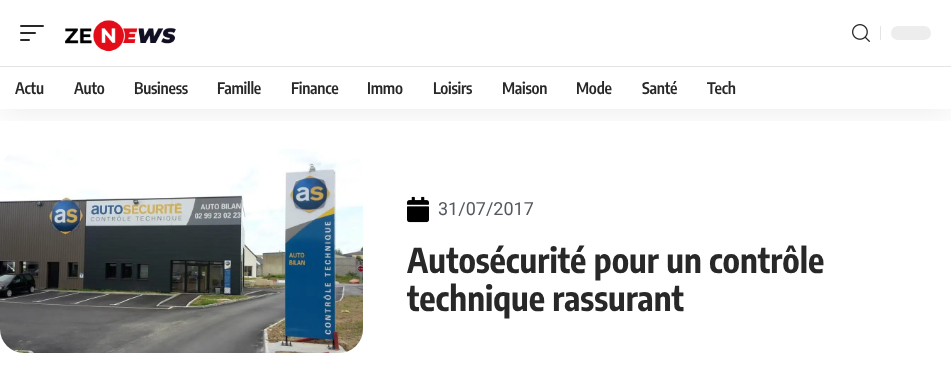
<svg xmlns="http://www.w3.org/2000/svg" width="951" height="365">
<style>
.a{font:600 16px Encode Sans Condensed;letter-spacing:-0.25px;fill:#282828}
.b{font:18px Roboto;fill:#54595f}
.c{font:bold 34px Encode Sans Condensed;fill:#282828}
</style>
<defs>
<clipPath id="clip1"><path d="M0 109h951v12H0z"/></clipPath>
</defs>
<rect width="100%" height="100%" fill="#fff"/>
<image href="3.png" x="0" y="149" width="363" height="204"/>
<g clip-path="url(#clip1)">
<path fill="#00000012" filter="blur(15px)" d="M0 4h951v109H0z"/>
</g>
<rect fill="#282828" x="20" y="25" width="24" height="2" rx="1"/>
<rect fill="#282828" x="20" y="32" width="16" height="2" rx="1"/>
<rect fill="#282828" x="20" y="39" width="10" height="2" rx="1"/>
<image href="1.png" x="65" y="20" width="111" height="32"/>
<image href="2.png" x="852" y="24" width="18" height="18"/>
<path fill="#e4e4e4" d="M880 26h1v14H880z"/>
<rect fill="#ededed" x="891" y="26" width="40" height="14" rx="7"/>
<path fill="#e4e4e4" d="M0 66h951v1H0z"/>
<image href="4.png" x="407" y="196" width="22" height="27"/>
<text class="a" x="15" y="94">Actu</text>
<text class="a" x="74" y="94">Auto</text>
<text class="a" x="134" y="94">Business</text>
<text class="a" x="217" y="94">Famille</text>
<text class="a" x="291" y="94">Finance</text>
<text class="a" x="367" y="94">Immo</text>
<text class="a" x="433" y="94">Loisirs</text>
<text class="a" x="502" y="94">Maison</text>
<text class="a" x="576" y="94">Mode</text>
<text class="a" x="642" y="94">Santé</text>
<text class="a" x="707" y="94">Tech</text>
<text class="b" x="438" y="215">31/07/2017</text>
<text class="c" x="407" y="273">Autosécurité pour un contrôle</text>
<text class="c" x="407" y="311">technique rassurant</text>
</svg>
